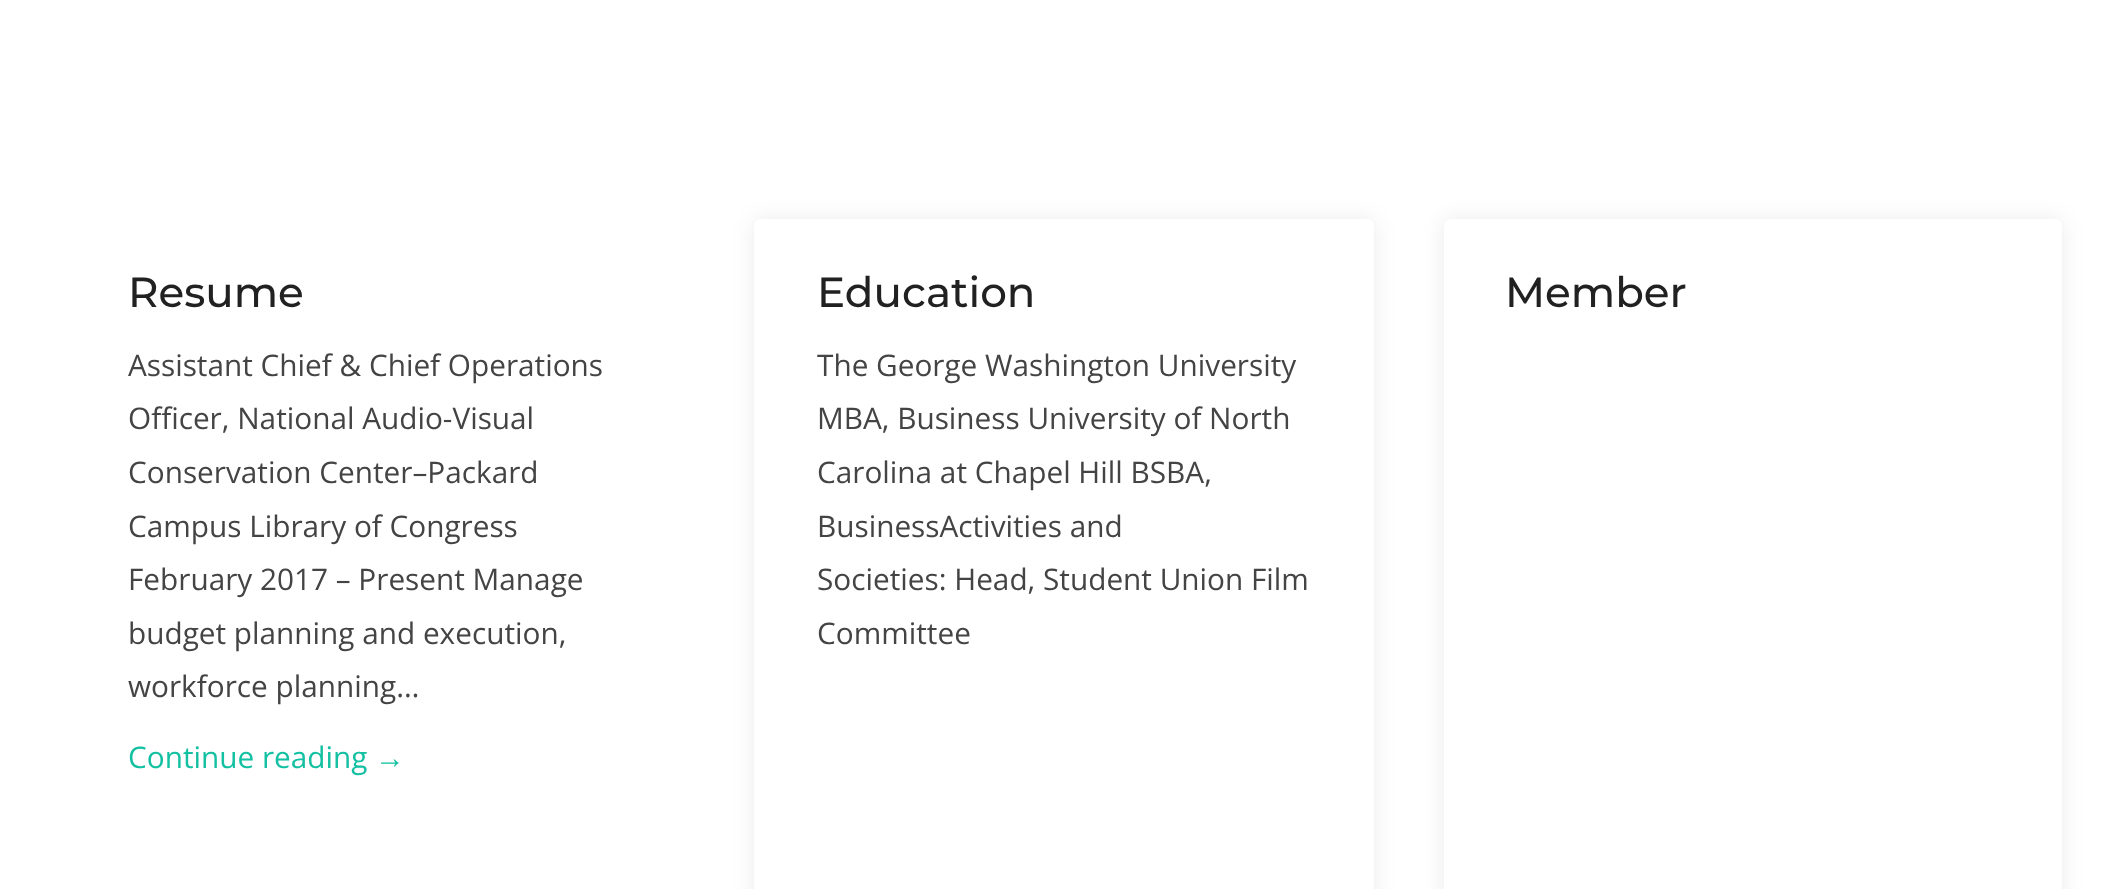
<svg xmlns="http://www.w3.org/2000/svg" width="2127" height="889">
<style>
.a{font:100 42px Montserrat;fill:#212121}
.b{font:29.75px Open Sans;fill:#444}
.c{font:29.75px Open Sans;fill:#13c0a2}
.d{font:29.75px Liberation Sans;fill:#13c0a2}
</style>
<rect width="100%" height="100%" fill="#fff"/>
<rect fill="#00000014" filter="blur(10.5px)" x="754" y="219" width="620" height="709" rx="7"/>
<rect fill="#fff" x="754" y="219" width="620" height="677" rx="7"/>
<rect fill="#00000014" filter="blur(10.5px)" x="1444" y="219" width="618" height="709" rx="7"/>
<rect fill="#fff" x="1444" y="219" width="618" height="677" rx="7"/>
<text class="a" x="128" y="307">Resume</text>
<text class="b" x="128" y="376">Assistant Chief &amp; Chief Operations</text>
<text class="b" x="128" y="429">Officer, National Audio-Visual</text>
<text class="b" x="128" y="483">Conservation Center–Packard</text>
<text class="b" x="128" y="537">Campus Library of Congress</text>
<text class="b" x="128" y="590">February 2017 – Present Manage</text>
<text class="b" x="128" y="644">budget planning and execution,</text>
<text class="b" x="128" y="697">workforce planning…</text>
<text class="c" x="128" y="768">Continue reading</text>
<text class="d" x="375" y="768">→</text>
<text class="a" x="817" y="307">Education</text>
<text class="b" x="817" y="376">The George Washington University</text>
<text class="b" x="817" y="429">MBA, Business University of North</text>
<text class="b" x="817" y="483">Carolina at Chapel Hill BSBA,</text>
<text class="b" x="817" y="537">BusinessActivities and</text>
<text class="b" x="817" y="590">Societies: Head, Student Union Film</text>
<text class="b" x="817" y="644">Committee</text>
<text class="a" x="1505" y="307">Member</text>
</svg>
